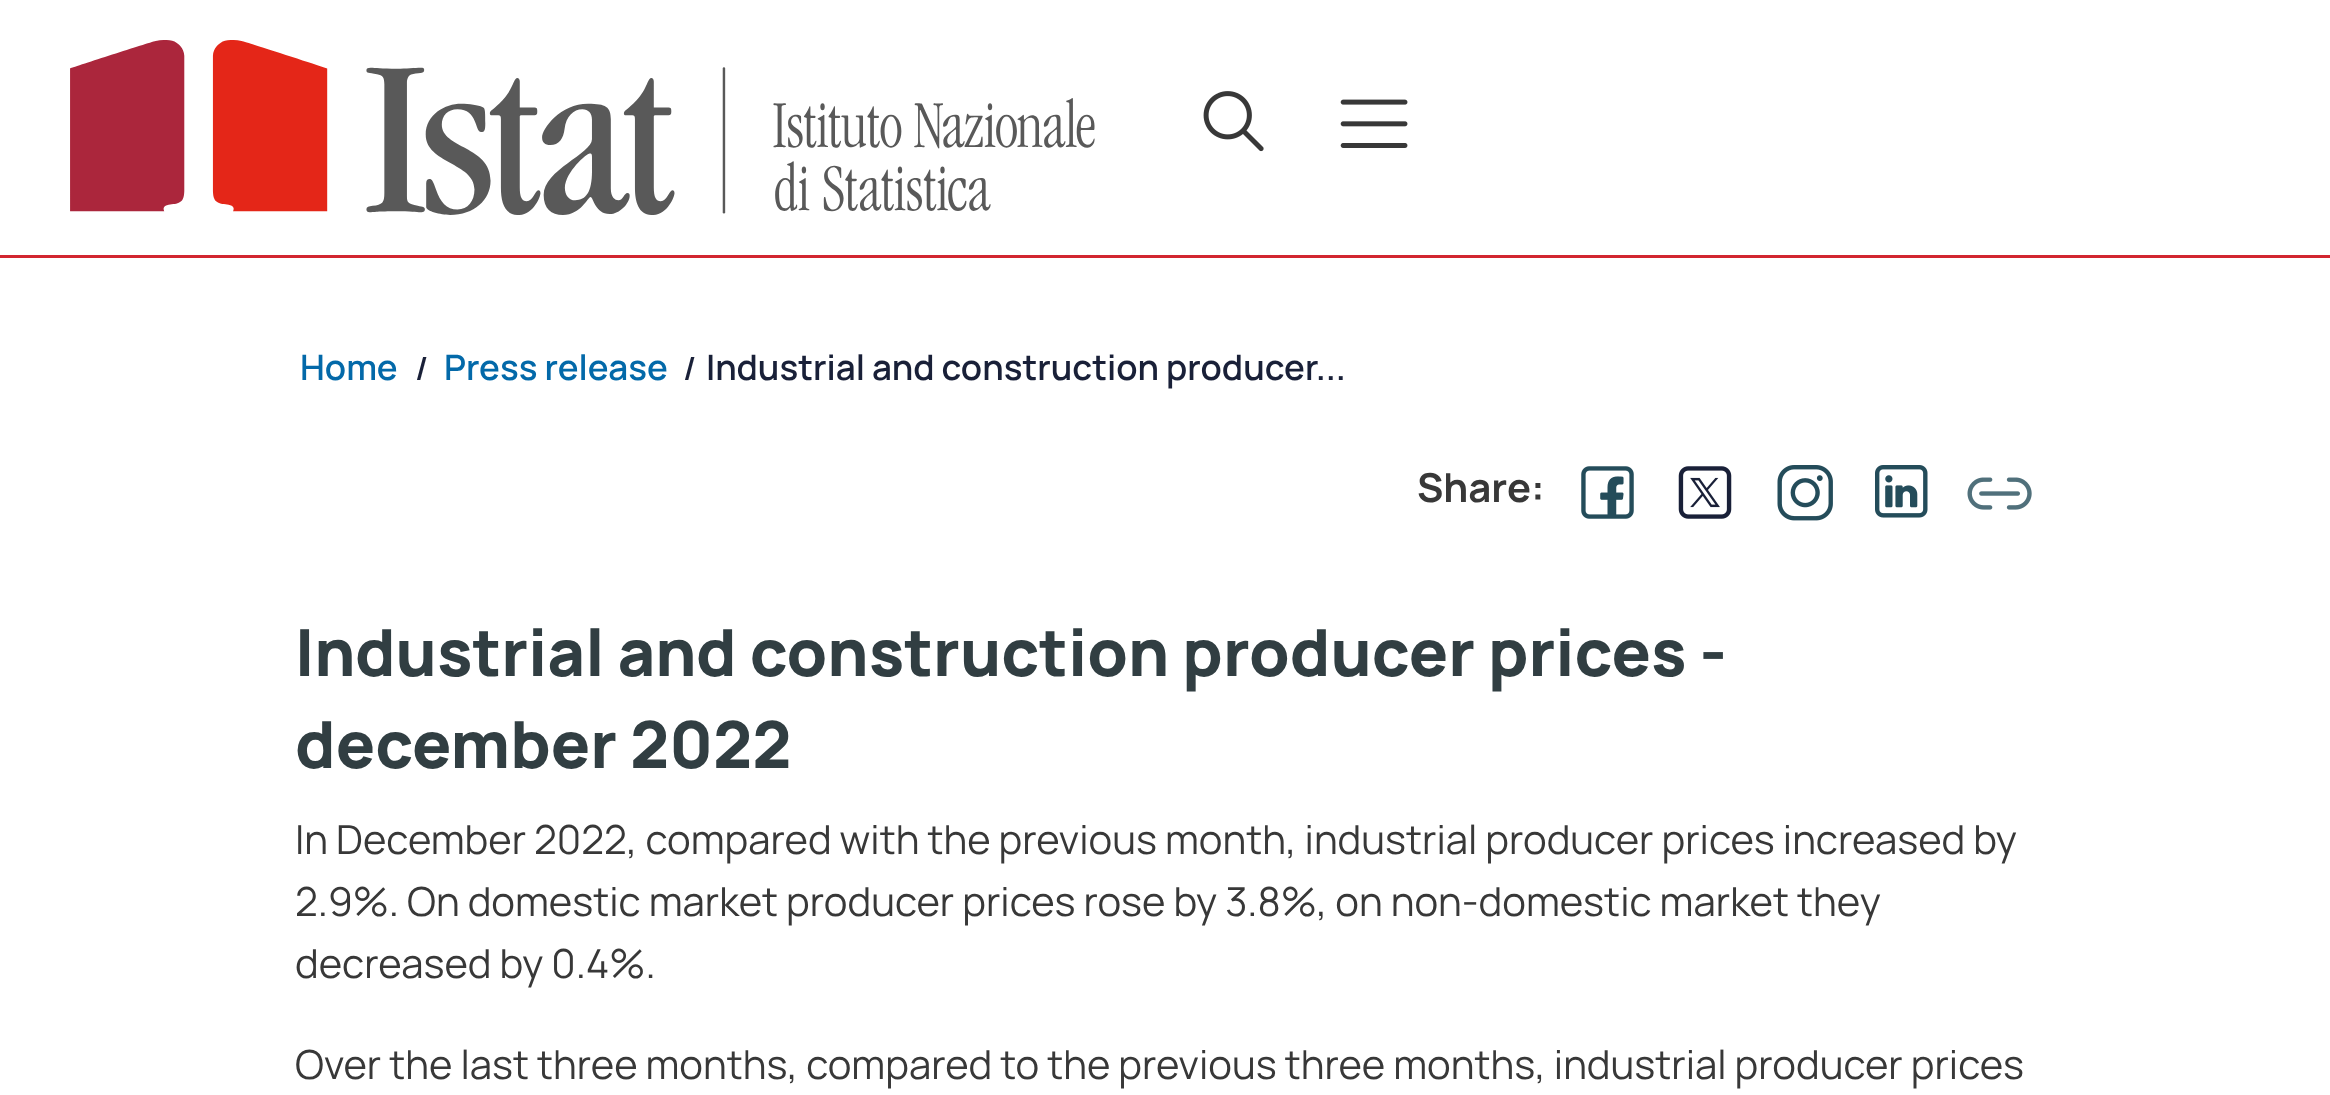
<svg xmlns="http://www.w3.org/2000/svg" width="2330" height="1095">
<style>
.a{font:600 35px Manrope;fill:#0369a9}
.b{font:600 32px Manrope;fill:#192038}
.c{font:600 35px Manrope;fill:#192038}
.d{font:bold 40px Manrope;fill:#383838}
.e{font:800 65px Manrope;fill:#313e42}
.f{font:40px Manrope;fill:#383838}
</style>
<rect width="100%" height="100%" fill="#fff"/>
<path fill="#d22630" d="M0 255h2330v3H0z"/>
<image href="1.png" x="70" y="40" width="1025" height="175"/>
<image href="2.png" x="1203" y="91" width="61" height="61"/>
<image href="3.png" x="1340" y="99" width="68" height="49"/>
<image href="4.png" x="1581" y="466" width="53" height="53"/>
<image href="5.png" x="1678" y="466" width="54" height="53"/>
<image href="6.png" x="1777" y="465" width="56" height="56"/>
<image href="7.png" x="1875" y="465" width="53" height="53"/>
<image href="8.png" x="1967" y="477" width="65" height="33"/>
<text class="a" x="300" y="380">Home</text>
<text class="b" x="415" y="380">/</text>
<text class="a" x="444" y="380">Press release</text>
<text class="b" x="683" y="380">/</text>
<text class="c" x="706" y="380">Industrial and construction producer...</text>
<text class="d" x="1417" y="502">Share:</text>
<text class="e" x="295" y="676">Industrial and construction producer prices -</text>
<text class="e" x="295" y="768">december 2022</text>
<text class="f" x="295" y="854">In December 2022, compared with the previous month, industrial producer prices increased by</text>
<text class="f" x="295" y="916">2.9%. On domestic market producer prices rose by 3.8%, on non-domestic market they</text>
<text class="f" x="295" y="978">decreased by 0.4%.</text>
<text class="f" x="295" y="1079">Over the last three months, compared to the previous three months, industrial producer prices</text>
</svg>
